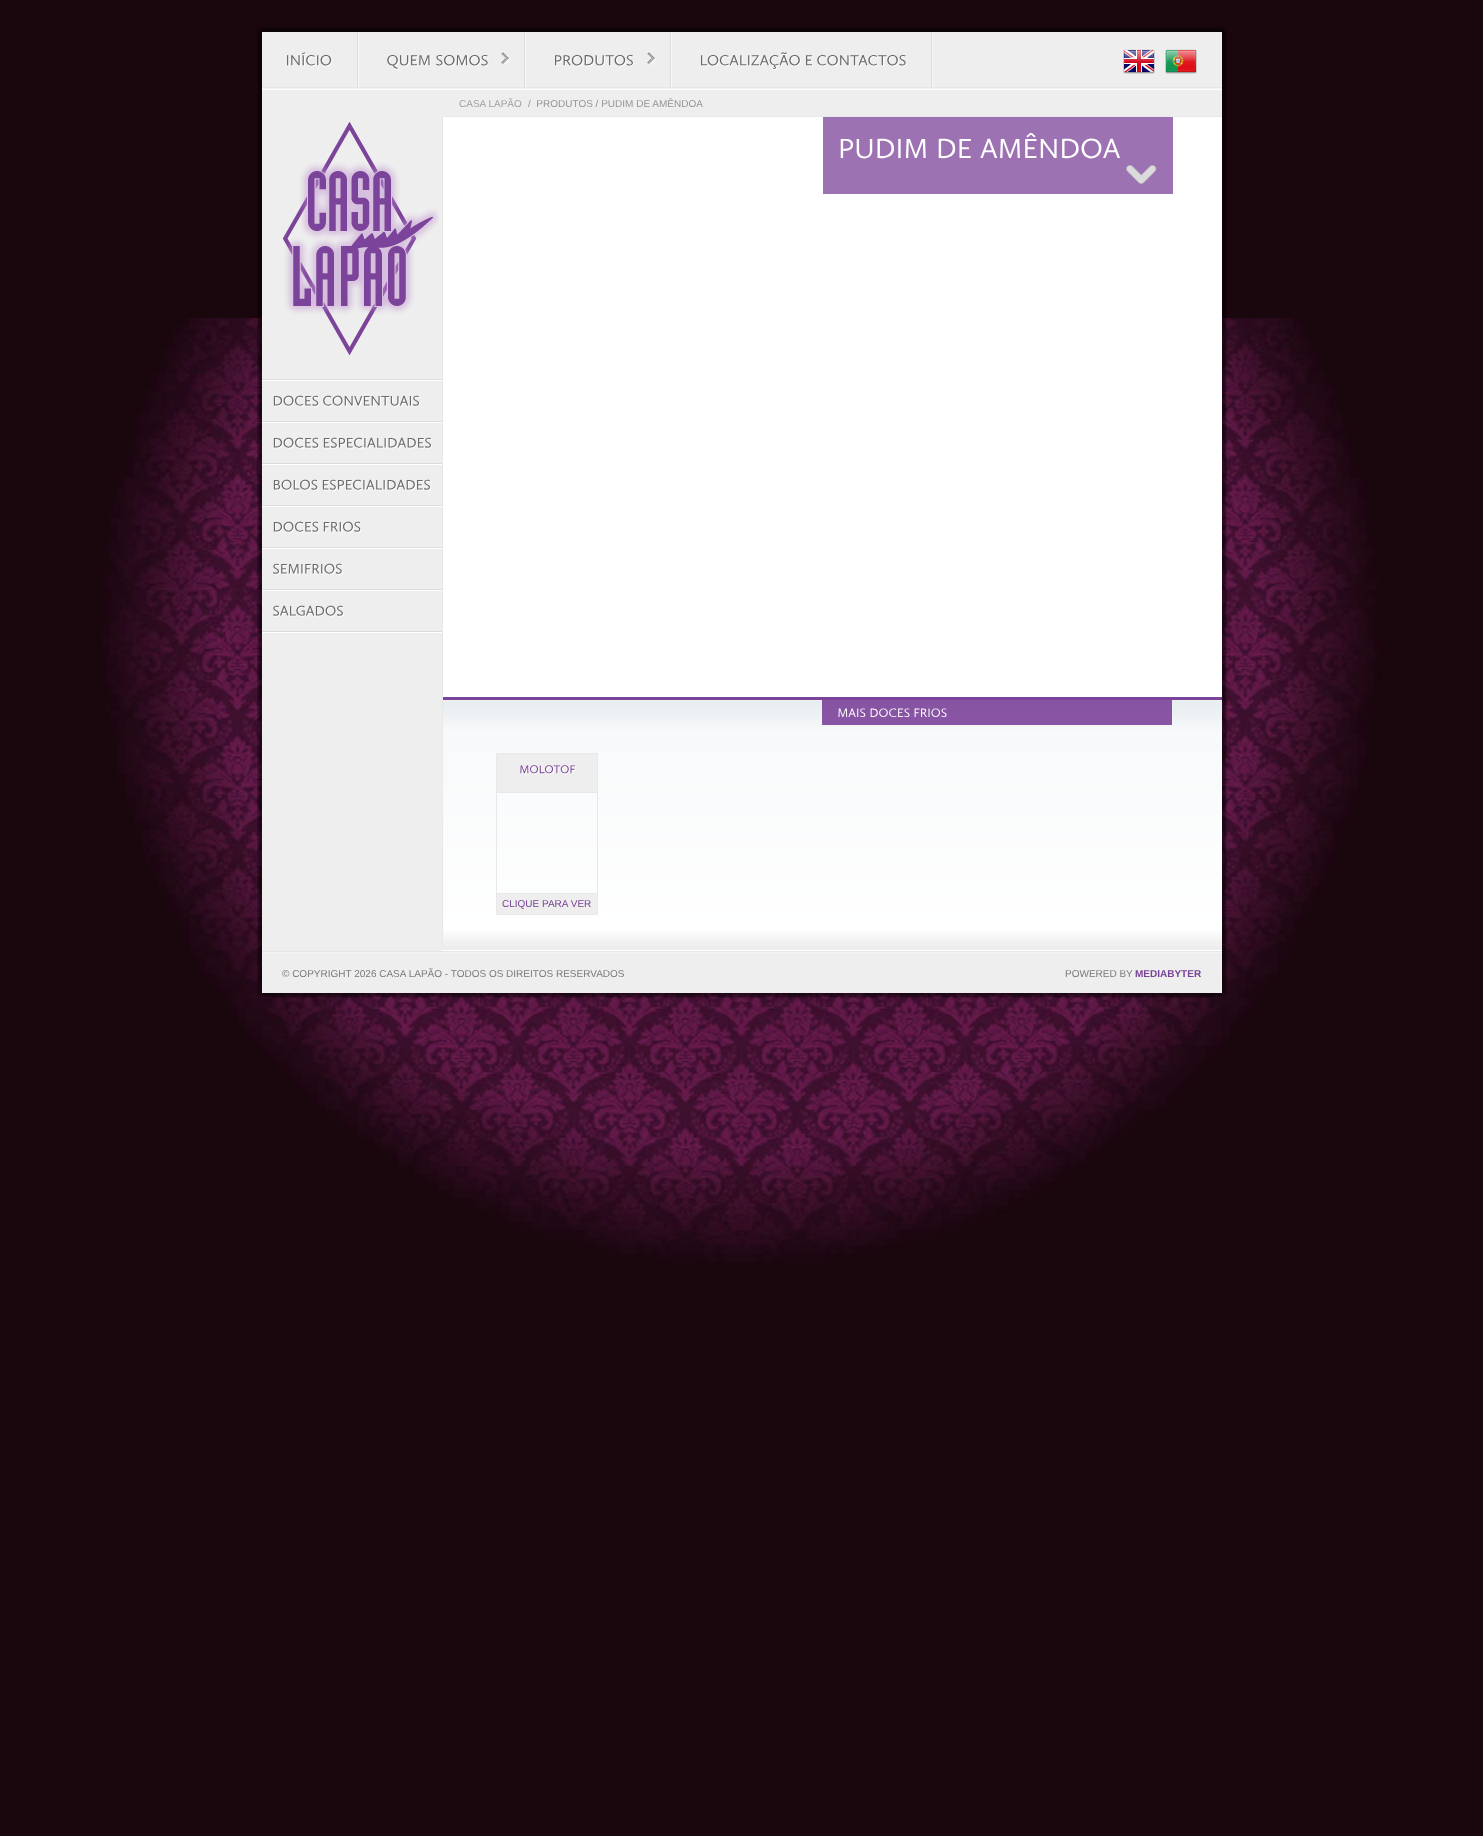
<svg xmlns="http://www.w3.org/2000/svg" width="1483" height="1836">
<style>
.a{font:10px Liberation Sans;fill:#9f9f9f}
.b{font:10px Liberation Sans;fill:#949494}
.c{font:10px Liberation Sans;fill:#784296}
.d{font:10px Liberation Sans;fill:#7a7a7a}
.e{font:bold 10px Liberation Sans;fill:#784296}
</style>
<rect width="100%" height="100%" fill="#1a070d"/>
<image href="1.png" x="102" y="318" width="1279" height="944"/>
<image href="2.png" x="257" y="27" width="970" height="62"/>
<image href="3.png" x="357" y="32" width="2" height="55"/>
<image href="4.png" x="287" y="52" width="45" height="15"/>
<image href="3.png" x="524" y="32" width="2" height="55"/>
<image href="5.png" x="387" y="55" width="44" height="15"/>
<image href="6.png" x="436" y="55" width="53" height="12"/>
<image href="7.png" x="501" y="52" width="9" height="13"/>
<image href="3.png" x="670" y="32" width="2" height="55"/>
<image href="8.png" x="555" y="55" width="79" height="12"/>
<image href="7.png" x="647" y="52" width="9" height="13"/>
<image href="3.png" x="931" y="32" width="2" height="55"/>
<image href="9.png" x="701" y="52" width="100" height="18"/>
<image href="10.png" x="806" y="55" width="7" height="12"/>
<image href="11.png" x="817" y="55" width="90" height="12"/>
<image href="12.png" x="1123" y="49" width="32" height="25"/>
<image href="13.png" x="1165" y="49" width="32" height="25"/>
<image href="14.png" x="257" y="89" width="970" height="862"/>
<path fill="#fcfcfc" d="M262 89h960v1H262z"/>
<image href="15.png" x="283" y="122" width="156" height="233"/>
<path fill="#dcdcdc" d="M262 379h180v1H262z"/>
<path fill="#fff" d="M262 632h180v1H262z"/>
<path fill="#fff" d="M262 380h180v1H262z"/>
<path fill="#dcdcdc" d="M262 421h180v1H262z"/>
<image href="16.png" x="273" y="395" width="46" height="12"/>
<image href="17.png" x="323" y="395" width="97" height="12"/>
<path fill="#fff" d="M262 422h180v1H262z"/>
<path fill="#dcdcdc" d="M262 463h180v1H262z"/>
<image href="16.png" x="273" y="437" width="46" height="12"/>
<image href="18.png" x="323" y="437" width="109" height="12"/>
<path fill="#fff" d="M262 464h180v1H262z"/>
<path fill="#dcdcdc" d="M262 505h180v1H262z"/>
<image href="19.png" x="273" y="479" width="46" height="12"/>
<image href="18.png" x="322" y="479" width="109" height="12"/>
<path fill="#fff" d="M262 506h180v1H262z"/>
<path fill="#dcdcdc" d="M262 547h180v1H262z"/>
<image href="16.png" x="273" y="521" width="46" height="12"/>
<image href="20.png" x="323" y="521" width="39" height="12"/>
<path fill="#fff" d="M262 548h180v1H262z"/>
<path fill="#dcdcdc" d="M262 589h180v1H262z"/>
<image href="21.png" x="273" y="563" width="70" height="12"/>
<path fill="#fff" d="M262 590h180v1H262z"/>
<path fill="#dcdcdc" d="M262 631h180v1H262z"/>
<image href="22.png" x="273" y="605" width="71" height="12"/>
<path fill="#eee" d="M442 90h780v26H442z"/>
<path fill="#e8e8e8" d="M442 116h780v1H442z"/>
<path fill="#e8e8e8" d="M442 117h1v833H442z"/>
<path fill="#9d72b3" d="M823 117h350v77H823z"/>
<image href="23.png" x="840" y="138" width="86" height="21"/>
<image href="24.png" x="938" y="138" width="33" height="21"/>
<image href="25.png" x="980" y="133" width="140" height="26"/>
<image href="26.png" x="1125" y="165" width="32" height="19"/>
<path fill="#7c439a" d="M443 697h779v3H443z"/>
<image href="30.png" x="443" y="700" width="779" height="250"/>
<path fill="#7c439ae6" d="M822 700h350v25H822z"/>
<image href="27.png" x="838" y="708" width="28" height="9"/>
<image href="28.png" x="870" y="708" width="40" height="9"/>
<image href="29.png" x="914" y="708" width="33" height="9"/>
<path fill="none" stroke="#e8e8e8" d="M496.5 753.5h101v161H496.5z"/>
<path fill="#eee" d="M497 754h100v38H497z"/>
<path fill="#e8e8e8" d="M497 792h100v1H497z"/>
<image href="31.png" x="520" y="765" width="56" height="10"/>
<path fill="#eee" d="M497 894h100v20H497z"/>
<path fill="#e8e8e8" d="M497 893h100v1H497z"/>
<image href="32.png" x="257" y="951" width="970" height="47"/>
<text class="a" x="459" y="107">CASA LAPÃO</text>
<text class="b" xml:space="preserve" x="528" y="107">/  PRODUTOS / PUDIM DE AMÊNDOA</text>
<text class="c" x="502" y="907">CLIQUE PARA VER</text>
<text class="d" x="282" y="977">© COPYRIGHT 2026 CASA LAPÃO - TODOS OS DIREITOS RESERVADOS</text>
<text class="d" x="1065" y="977">POWERED BY</text>
<text class="e" x="1135" y="977">MEDIABYTER</text>
</svg>
